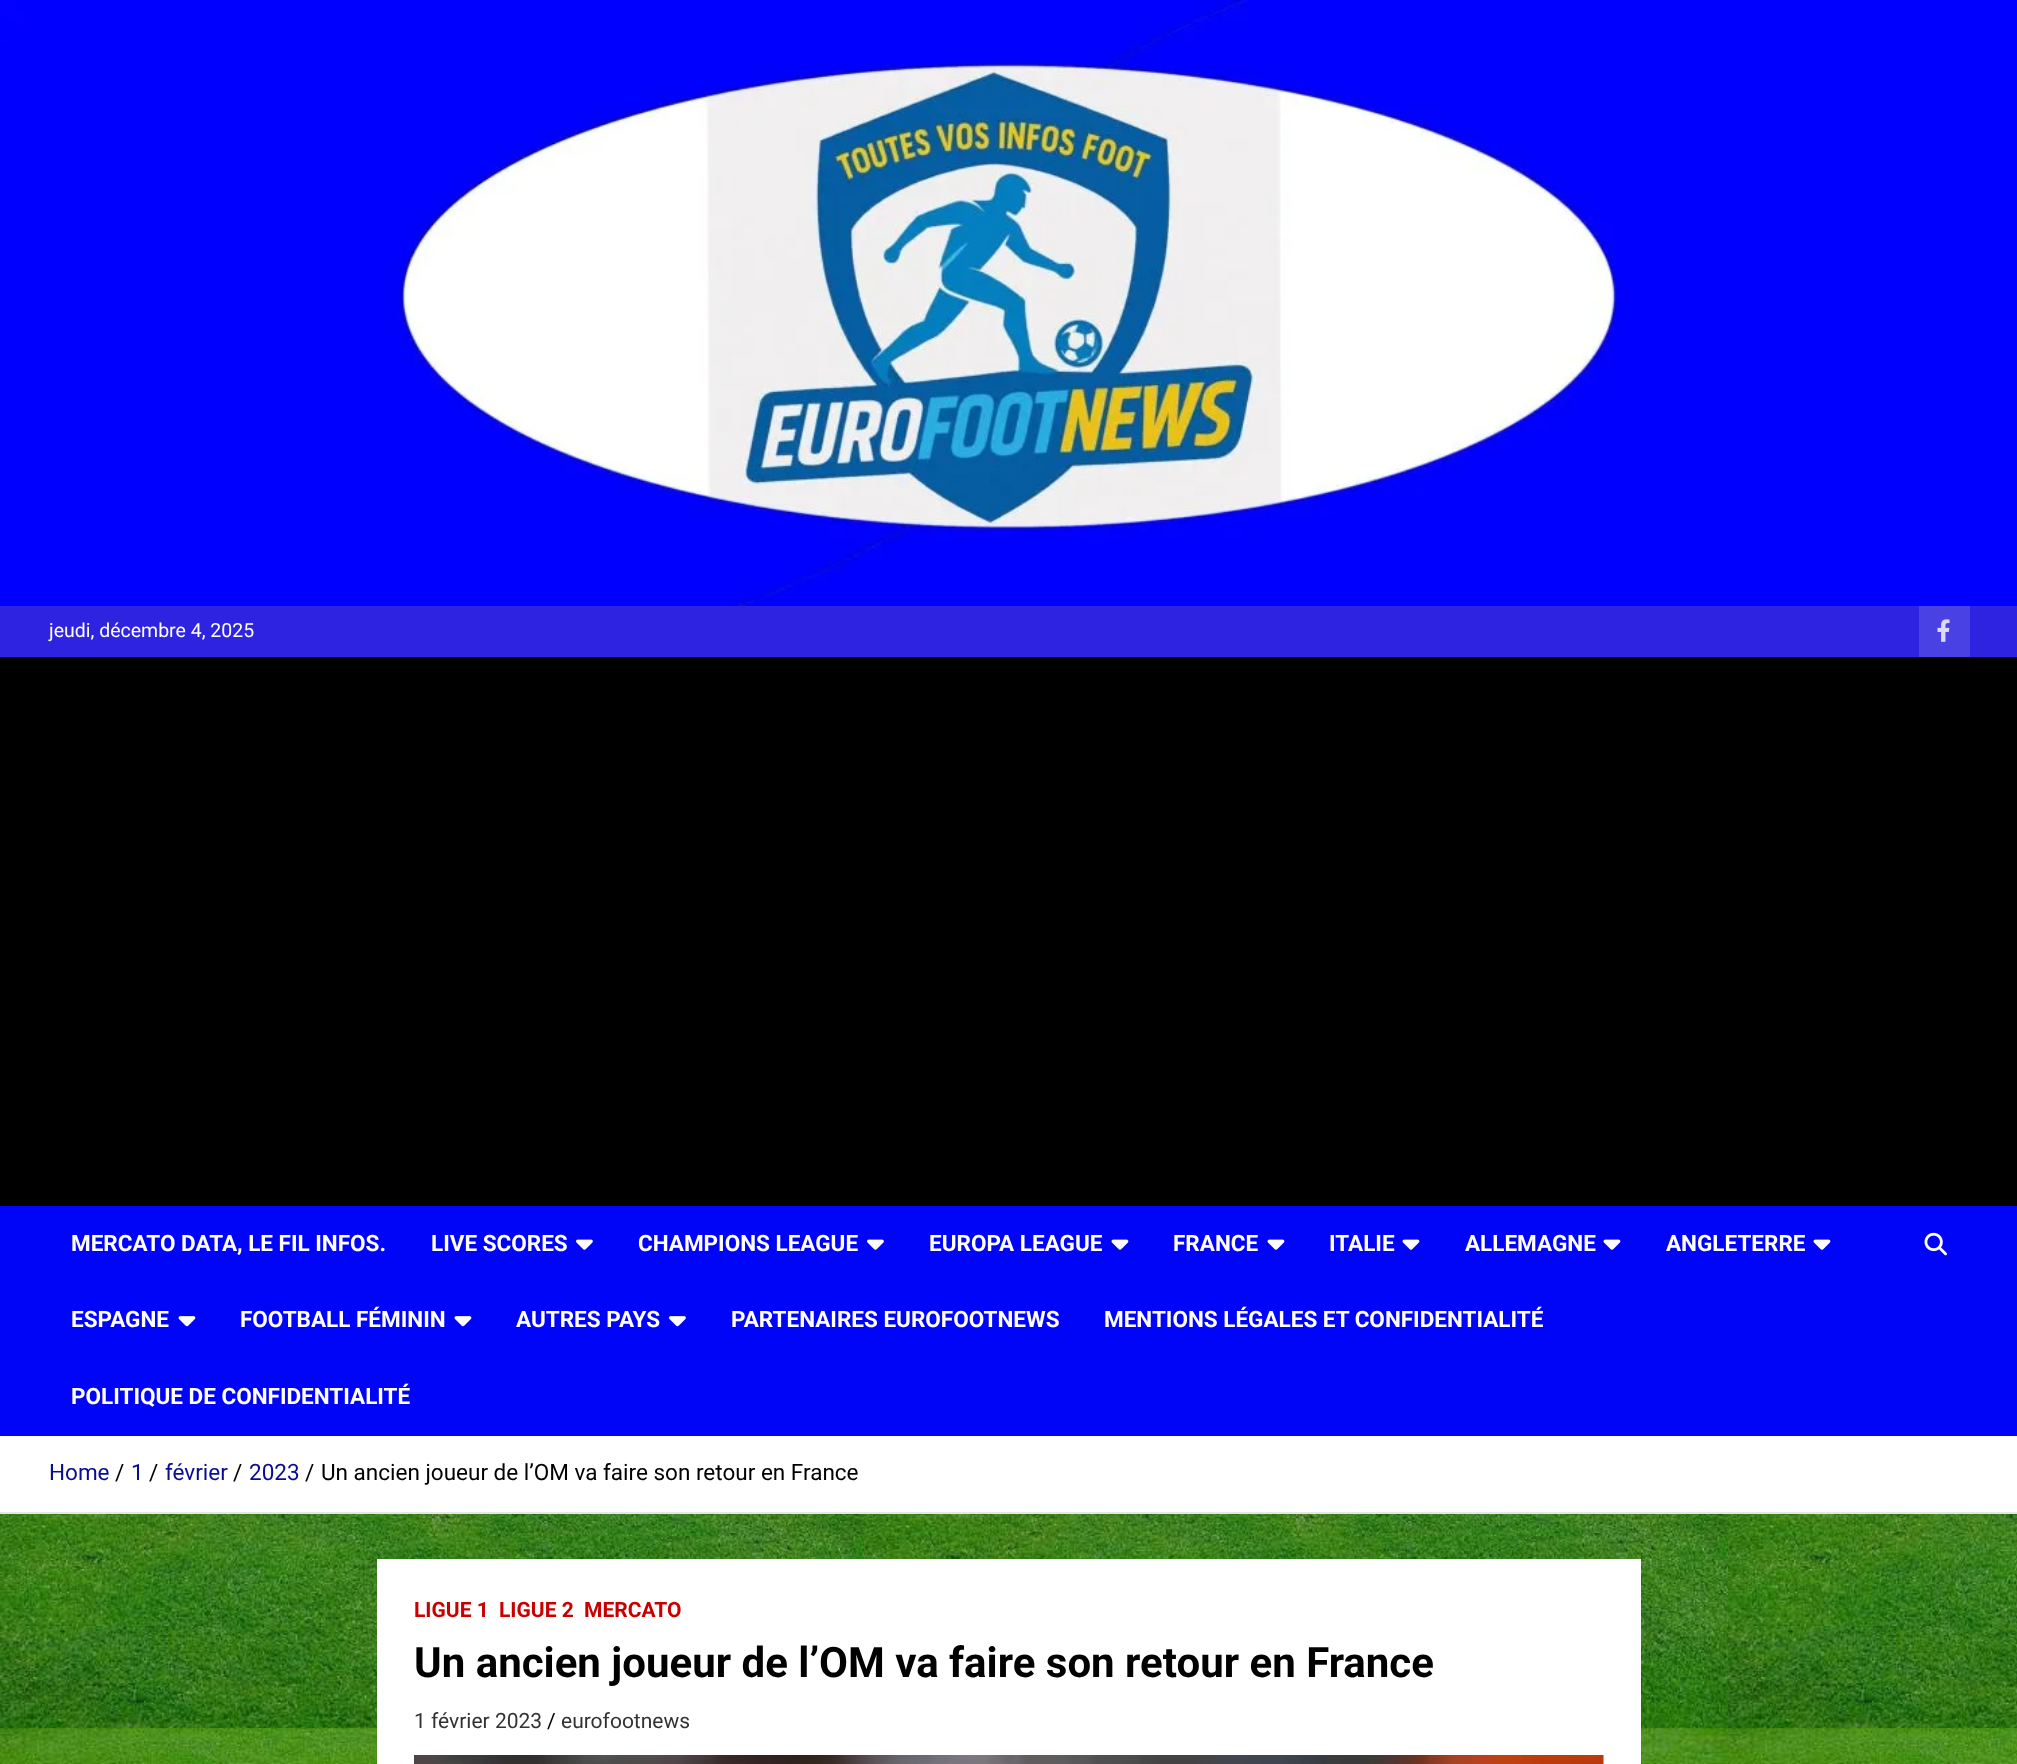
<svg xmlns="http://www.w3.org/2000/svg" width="2017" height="1764">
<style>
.a{font:19.5px Roboto;fill:#fff}
.b{font:bold 22.5px Roboto;fill:#fff}
.c{font:22.5px Roboto;fill:#090d8f}
.d{font:22.5px Roboto;fill:#000}
.e{font:bold 21px Roboto;fill:#c80000}
.f{font:bold 42px Roboto;fill:#000}
.g{font:21px Roboto;fill:#333}
.h{font:21px Roboto;fill:#000}
</style>
<rect width="100%" height="100%" fill="#fff"/>
<image href="1.png" x="0" y="1514" width="2017" height="250"/>
<image href="2.png" x="0" y="0" width="2017" height="606"/>
<path fill="#2d23e0" d="M0 606h2017v51H0z"/>
<path fill="#4a41e4" d="M1919 606h51v51H1919z"/>
<image href="3.png" x="1937" y="619" width="13" height="23"/>
<path fill="#000" d="M0 657h2017v549H0z"/>
<path fill="#0004f7" d="M0 1206h2017v230H0z"/>
<image href="4.png" x="576" y="1239" width="17" height="11"/>
<image href="4.png" x="867" y="1239" width="17" height="11"/>
<image href="5.png" x="1111" y="1239" width="18" height="11"/>
<image href="5.png" x="1267" y="1239" width="18" height="11"/>
<image href="5.png" x="1402" y="1239" width="18" height="11"/>
<image href="5.png" x="1603" y="1239" width="18" height="11"/>
<image href="5.png" x="1813" y="1239" width="18" height="11"/>
<image href="6.png" x="178" y="1316" width="18" height="11"/>
<image href="6.png" x="454" y="1316" width="18" height="11"/>
<image href="7.png" x="669" y="1316" width="17" height="11"/>
<image href="8.png" x="1924" y="1232" width="23" height="24"/>
<path fill="#e6e6e6" d="M0 1512h2017v2H0z"/>
<path fill="#0000001a" filter="blur(1px)" d="M377 1560h1264v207H377z"/>
<path fill="#fff" d="M377 1559h1264v205H377z"/>
<image href="9.png" x="414" y="1755" width="1190" height="9"/>
<text class="a" x="49" y="637">jeudi, décembre 4, 2025</text>
<text class="b" x="71" y="1251">MERCATO DATA, LE FIL INFOS.</text>
<text class="b" x="431" y="1251">LIVE SCORES</text>
<text class="b" x="638" y="1251">CHAMPIONS LEAGUE</text>
<text class="b" x="929" y="1251">EUROPA LEAGUE</text>
<text class="b" x="1173" y="1251">FRANCE</text>
<text class="b" x="1329" y="1251">ITALIE</text>
<text class="b" x="1465" y="1251">ALLEMAGNE</text>
<text class="b" x="1666" y="1251">ANGLETERRE</text>
<text class="b" x="71" y="1327">ESPAGNE</text>
<text class="b" x="240" y="1327">FOOTBALL FÉMININ</text>
<text class="b" x="516" y="1327">AUTRES PAYS</text>
<text class="b" x="731" y="1327">PARTENAIRES EUROFOOTNEWS</text>
<text class="b" x="1104" y="1327">MENTIONS LÉGALES ET CONFIDENTIALITÉ</text>
<text class="b" x="71" y="1404">POLITIQUE DE CONFIDENTIALITÉ</text>
<text class="c" x="49" y="1480">Home</text>
<text class="d" x="115" y="1480">/</text>
<text class="c" x="131" y="1480">1</text>
<text class="d" x="149" y="1480">/</text>
<text class="c" x="165" y="1480">février</text>
<text class="d" x="233" y="1480">/</text>
<text class="c" x="249" y="1480">2023</text>
<text class="d" x="305" y="1480">/</text>
<text class="d" x="321" y="1480">Un ancien joueur de l’OM va faire son retour en France</text>
<text class="e" x="414" y="1617">LIGUE 1</text>
<text class="e" x="499" y="1617">LIGUE 2</text>
<text class="e" x="584" y="1617">MERCATO</text>
<text class="f" x="414" y="1677">Un ancien joueur de l’OM va faire son retour en France</text>
<text class="g" x="414" y="1728">1 février 2023</text>
<text class="h" x="547" y="1728">/</text>
<text class="g" x="561" y="1728">eurofootnews</text>
</svg>
